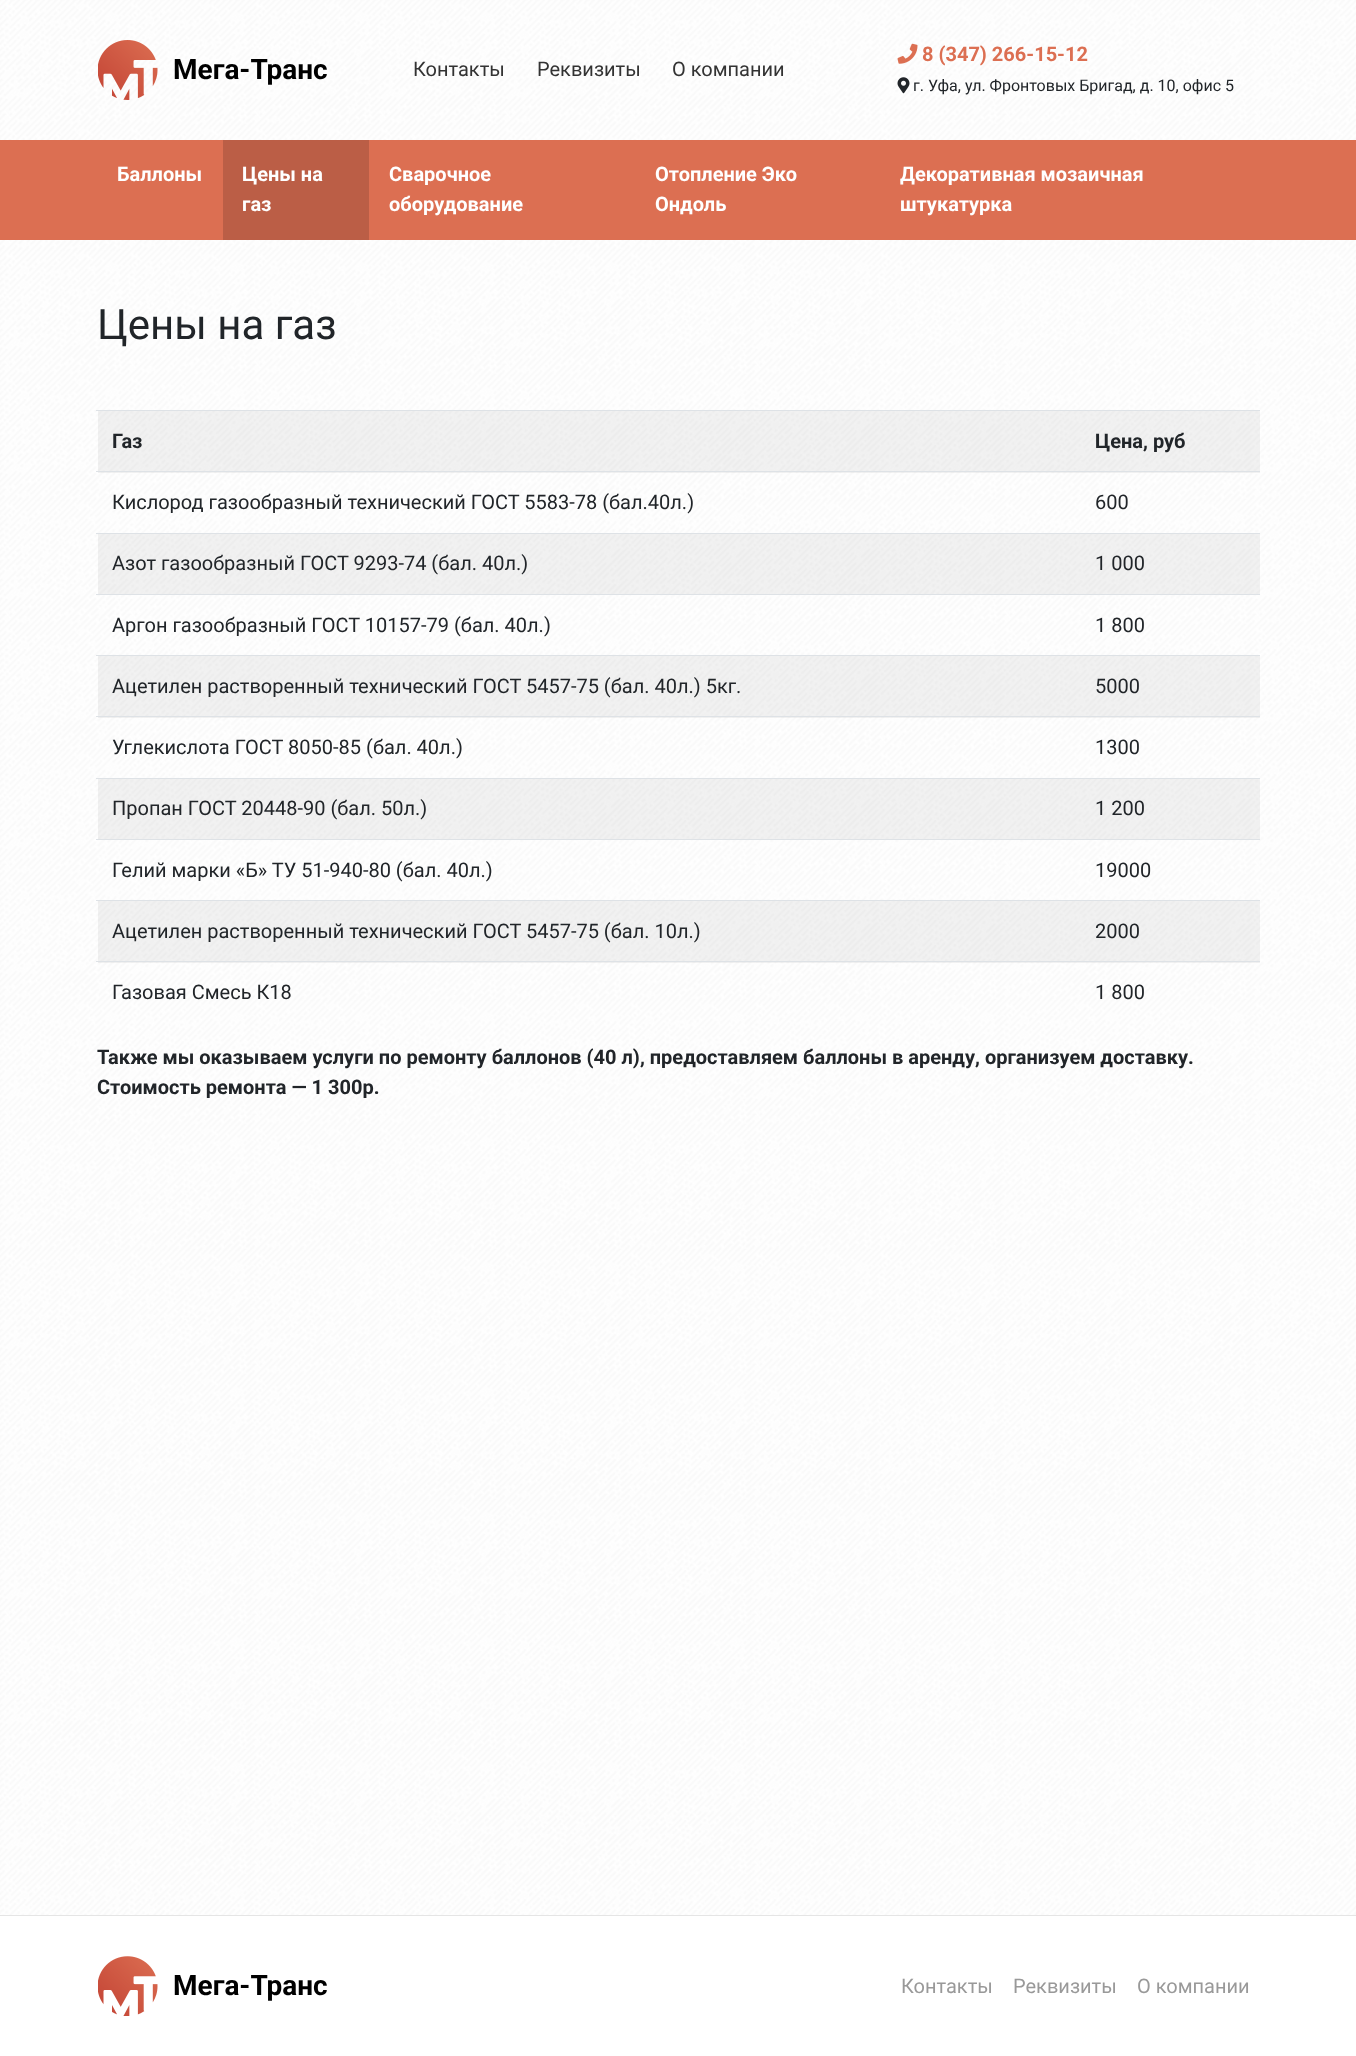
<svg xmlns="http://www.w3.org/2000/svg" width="1356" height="2056">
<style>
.a{font:bold 28px Roboto;fill:#000}
.b{font:20px Roboto;fill:#333}
.c{font:bold 20px Roboto;fill:#dc6f52}
.d{font:16px Roboto;fill:#212529}
.e{font:bold 20px Roboto;fill:#fff}
.f{font:42px Roboto;fill:#212529}
.g{font:bold 20px Roboto;fill:#212529}
.h{font:20px Roboto;fill:#212529}
.i{font:20px Roboto;fill:#999}
</style>
<rect width="100%" height="100%" fill="#fff"/>
<image href="1.png" x="0" y="0" width="1356" height="1915"/>
<image href="2.png" x="98" y="40" width="60" height="60"/>
<image href="3.png" x="897" y="43" width="21" height="21"/>
<image href="4.png" x="897" y="77" width="13" height="17"/>
<path fill="#dc6f52" d="M0 140h1356v100H0z"/>
<path fill="#bb5e46" d="M223 140h146v100H223z"/>
<path fill="#0000000d" d="M98 411h1162v62H98z"/>
<path fill="#dee2e6" d="M96 410h1164v1H96z"/>
<path fill="#dee2e6" d="M96 471h1164v1H96z"/>
<path fill="#0000000d" d="M98 534h1162v60H98z"/>
<path fill="#dee2e6" d="M96 533h1164v1H96z"/>
<path fill="#dee2e6" d="M96 594h1164v1H96z"/>
<path fill="#0000000d" d="M98 656h1162v62H98z"/>
<path fill="#dee2e6" d="M96 655h1164v1H96z"/>
<path fill="#dee2e6" d="M96 716h1164v1H96z"/>
<path fill="#0000000d" d="M98 779h1162v60H98z"/>
<path fill="#dee2e6" d="M96 778h1164v1H96z"/>
<path fill="#dee2e6" d="M96 839h1164v1H96z"/>
<path fill="#0000000d" d="M98 901h1162v62H98z"/>
<path fill="#dee2e6" d="M96 900h1164v1H96z"/>
<path fill="#dee2e6" d="M96 961h1164v1H96z"/>
<path fill="#e5e5e5" d="M0 1915h1356v1H0z"/>
<image href="5.png" x="98" y="1956" width="60" height="60"/>
<text class="a" x="173" y="79">Мега-Транс</text>
<text class="b" x="413" y="76">Контакты</text>
<text class="b" x="537" y="76">Реквизиты</text>
<text class="b" x="672" y="76">О компании</text>
<text class="c" x="922" y="61">8 (347) 266-15-12</text>
<text class="d" x="913" y="91">г. Уфа, ул. Фронтовых Бригад, д. 10, офис 5</text>
<text class="e" x="117" y="181">Баллоны</text>
<text class="e" x="242" y="181">Цены на</text>
<text class="e" x="242" y="211">газ</text>
<text class="e" x="389" y="181">Сварочное</text>
<text class="e" x="389" y="211">оборудование</text>
<text class="e" x="655" y="181">Отопление Эко</text>
<text class="e" x="655" y="211">Ондоль</text>
<text class="e" x="900" y="181">Декоративная мозаичная</text>
<text class="e" x="900" y="211">штукатурка</text>
<text class="f" x="97" y="339">Цены на газ</text>
<text class="g" x="112" y="448">Газ</text>
<text class="g" x="1095" y="448">Цена, руб</text>
<text class="h" x="112" y="509">Кислород газообразный технический ГОСТ 5583-78 (бал.40л.)</text>
<text class="h" x="1095" y="509">600</text>
<text class="h" x="112" y="570">Азот газообразный ГОСТ 9293-74 (бал. 40л.)</text>
<text class="h" x="1095" y="570">1 000</text>
<text class="h" x="112" y="632">Аргон газообразный ГОСТ 10157-79 (бал. 40л.)</text>
<text class="h" x="1095" y="632">1 800</text>
<text class="h" x="112" y="693">Ацетилен растворенный технический ГОСТ 5457-75 (бал. 40л.) 5кг.</text>
<text class="h" x="1095" y="693">5000</text>
<text class="h" x="112" y="754">Углекислота ГОСТ 8050-85 (бал. 40л.)</text>
<text class="h" x="1095" y="754">1300</text>
<text class="h" x="112" y="815">Пропан ГОСТ 20448-90 (бал. 50л.)</text>
<text class="h" x="1095" y="815">1 200</text>
<text class="h" x="112" y="877">Гелий марки «Б» ТУ 51-940-80 (бал. 40л.)</text>
<text class="h" x="1095" y="877">19000</text>
<text class="h" x="112" y="938">Ацетилен растворенный технический ГОСТ 5457-75 (бал. 10л.)</text>
<text class="h" x="1095" y="938">2000</text>
<text class="h" x="112" y="999">Газовая Смесь К18</text>
<text class="h" x="1095" y="999">1 800</text>
<text class="g" x="97" y="1064">Также мы оказываем услуги по ремонту баллонов (40 л), предоставляем баллоны в аренду, организуем доставку.</text>
<text class="g" x="97" y="1094">Стоимость ремонта — 1 300р.</text>
<text class="a" x="173" y="1995">Мега-Транс</text>
<text class="i" x="901" y="1993">Контакты</text>
<text class="i" x="1013" y="1993">Реквизиты</text>
<text class="i" x="1137" y="1993">О компании</text>
</svg>
